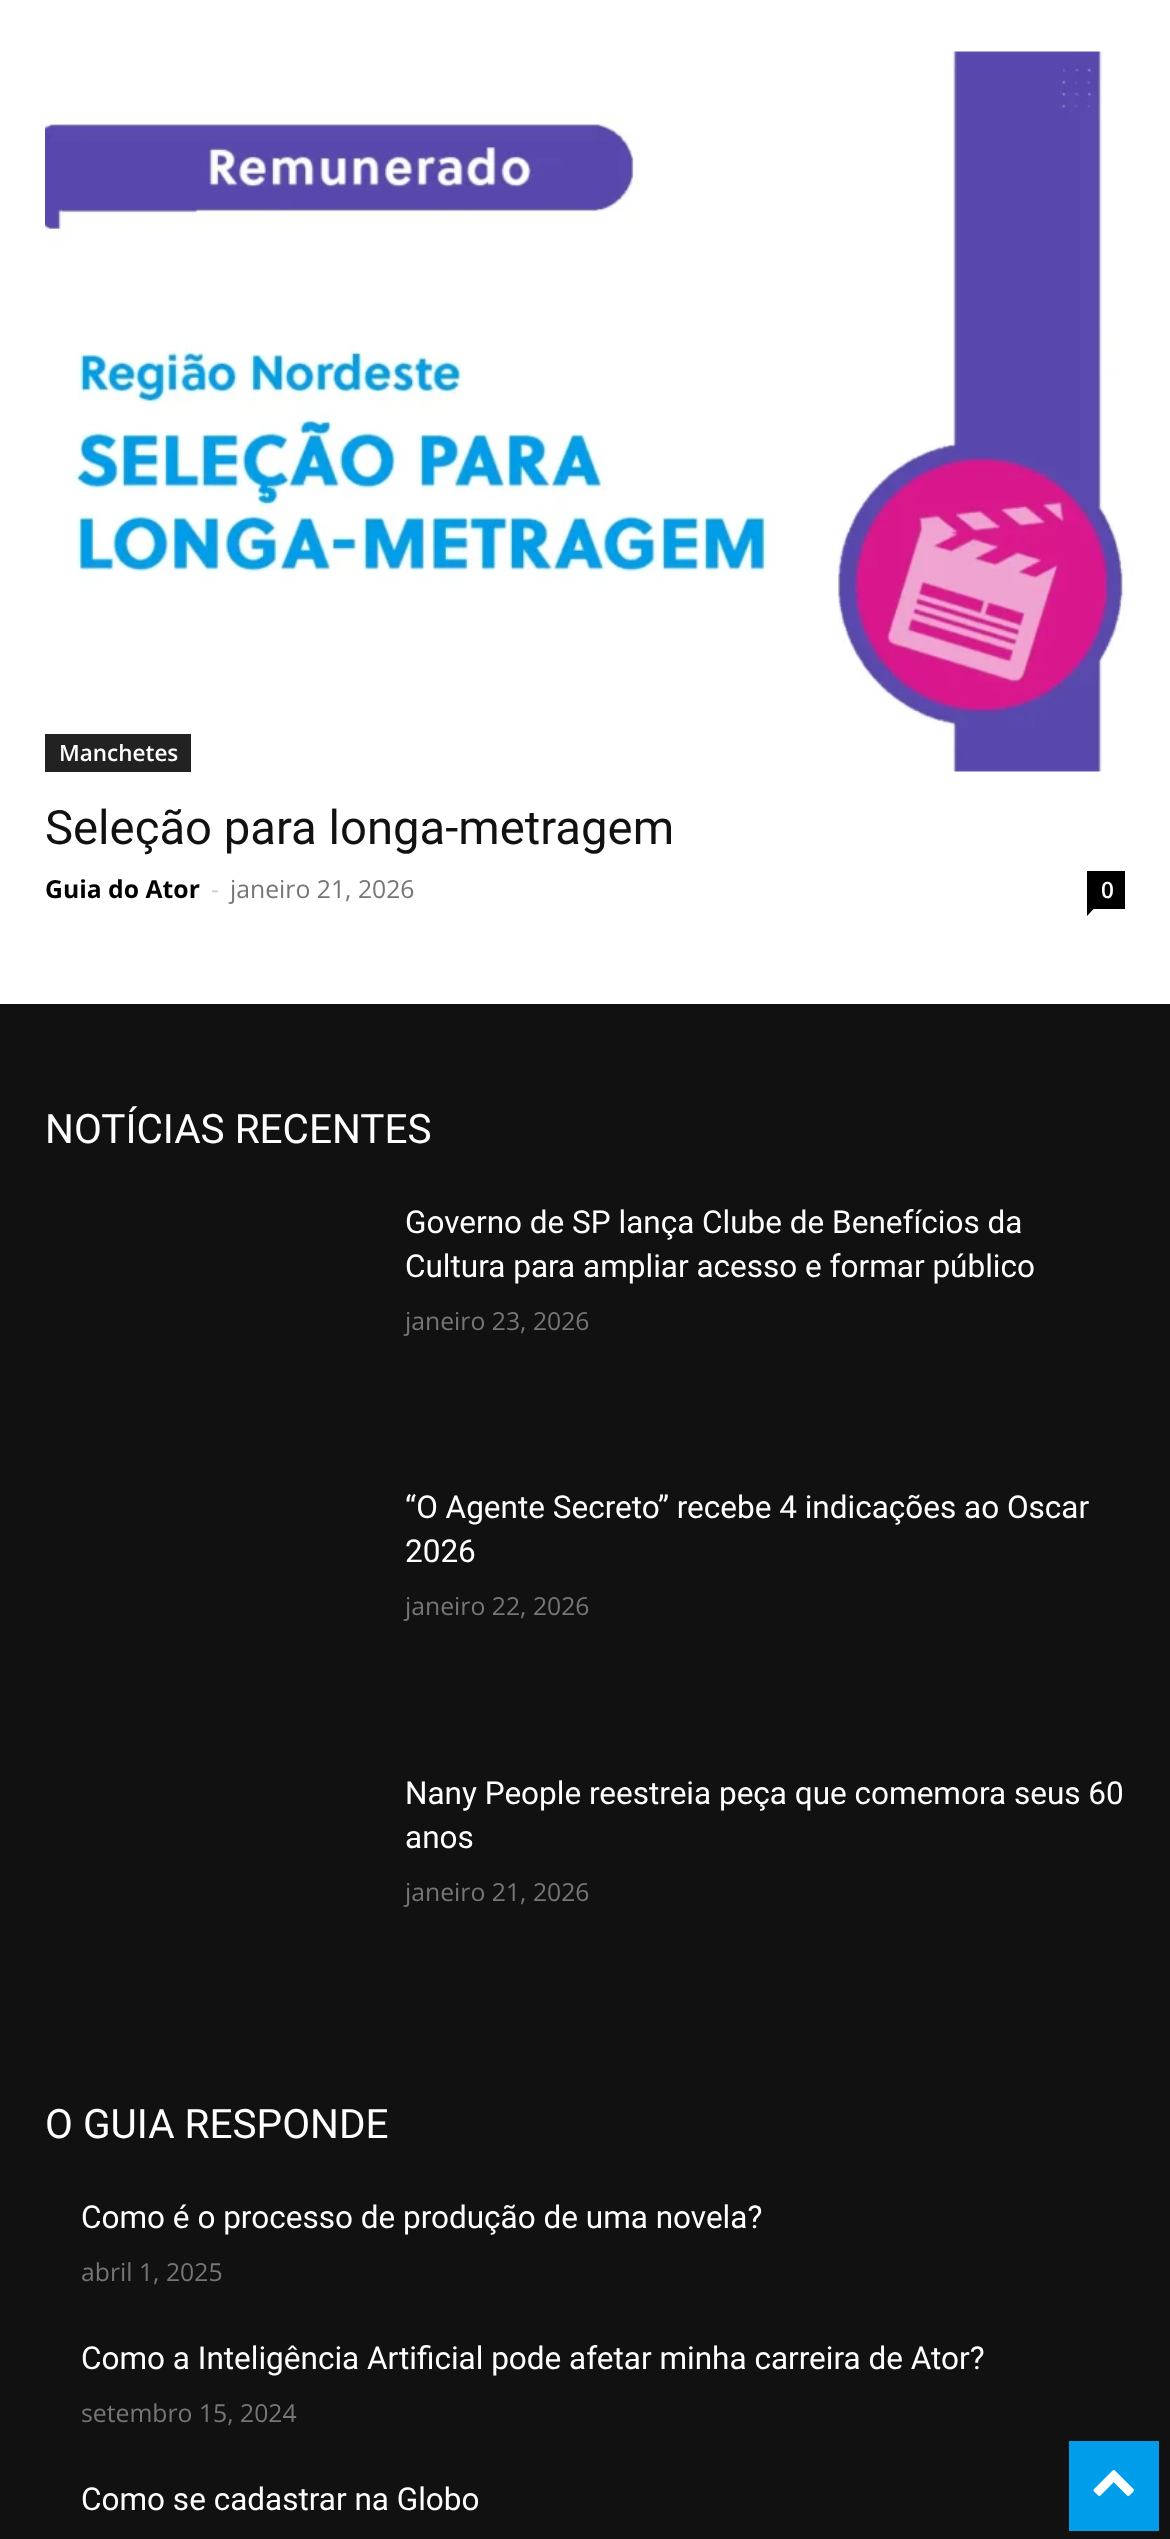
<svg xmlns="http://www.w3.org/2000/svg" width="1170" height="2539">
<style>
.a{font:600 22.5px Open Sans;fill:#fff}
.b{font:47.25px Roboto;fill:#111}
.c{font:bold 24.75px Open Sans;fill:#000}
.d{font:24.75px Open Sans;fill:#ccc}
.e{font:24.75px Open Sans;fill:#767676}
.f{font:40.5px Roboto;fill:#fff}
.g{font:31.5px Roboto;fill:#fff}
</style>
<rect width="100%" height="100%" fill="#fff"/>
<image href="1.png" x="45" y="51" width="1080" height="721"/>
<path fill="#222" d="M45 734h146v38H45z"/>
<path fill="#000" d="M1087 871h38v38H1087z"/>
<path fill="#000" d="M1087 909h6.5l-6.5 7z"/>
<path fill="#111" d="M0 1004h1170v1535H0z"/>
<path fill="#009dea" d="M1069 2441h90v90H1069z"/>
<image href="2.png" x="1093" y="2470" width="41" height="26"/>
<text class="a" x="59" y="761">Manchetes</text>
<text class="b" x="45" y="844">Seleção para longa-metragem</text>
<text class="c" x="45" y="898">Guia do Ator</text>
<text class="d" x="211" y="898">-</text>
<text class="e" x="230" y="898">janeiro 21, 2026</text>
<text class="a" x="1101" y="898">0</text>
<text class="f" x="45" y="1143">NOTÍCIAS RECENTES</text>
<text class="g" x="405" y="1233">Governo de SP lança Clube de Benefícios da</text>
<text class="g" x="405" y="1277">Cultura para ampliar acesso e formar público</text>
<text class="e" x="405" y="1330">janeiro 23, 2026</text>
<text class="g" x="405" y="1518">“O Agente Secreto” recebe 4 indicações ao Oscar</text>
<text class="g" x="405" y="1562">2026</text>
<text class="e" x="405" y="1615">janeiro 22, 2026</text>
<text class="g" x="405" y="1804">Nany People reestreia peça que comemora seus 60</text>
<text class="g" x="405" y="1848">anos</text>
<text class="e" x="405" y="1901">janeiro 21, 2026</text>
<text class="f" x="45" y="2138">O GUIA RESPONDE</text>
<text class="g" x="81" y="2228">Como é o processo de produção de uma novela?</text>
<text class="e" x="81" y="2281">abril 1, 2025</text>
<text class="g" x="81" y="2369">Como a Inteligência Artificial pode afetar minha carreira de Ator?</text>
<text class="e" x="81" y="2422">setembro 15, 2024</text>
<text class="g" x="81" y="2510">Como se cadastrar na Globo</text>
</svg>
